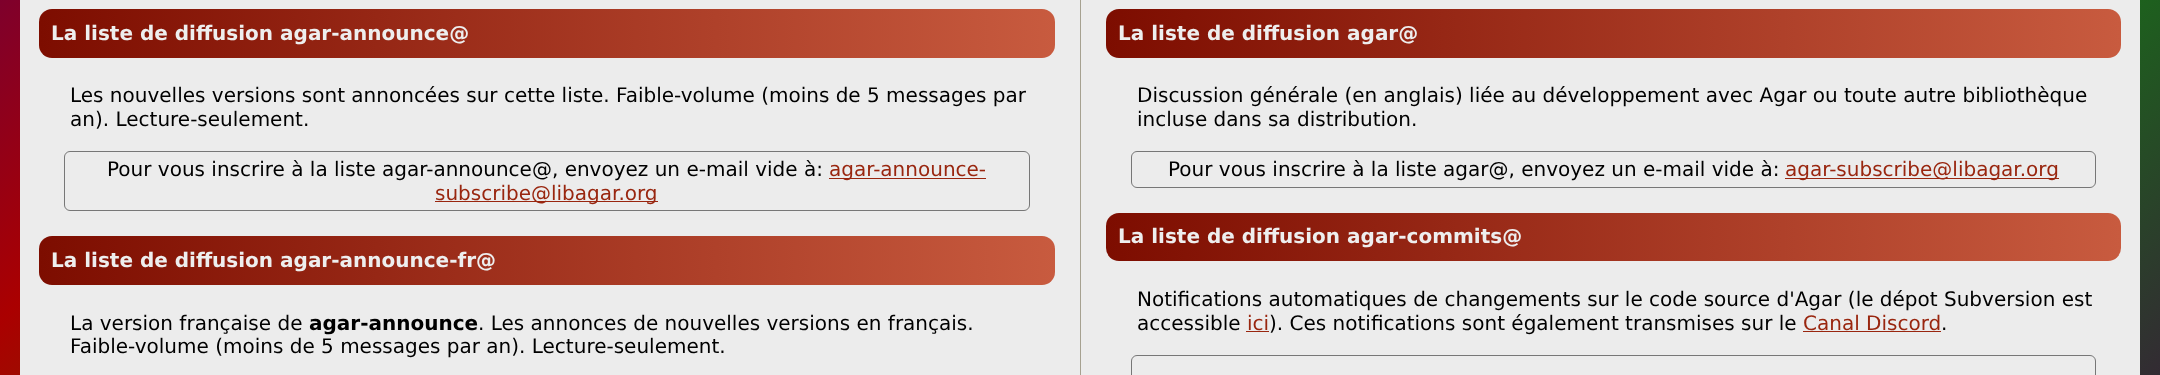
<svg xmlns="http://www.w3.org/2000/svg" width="2160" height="375">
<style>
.a{font:bold 20px DejaVu Sans;fill:#eee}
.b{font:20px DejaVu Sans;fill:#000}
.c{font:20px DejaVu Sans;fill:#99260f}
.d{font:bold 20px DejaVu Sans;fill:#000}
</style>
<defs>
<linearGradient id="g1" gradientUnits="userSpaceOnUse" x1="137" y1="-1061" x2="2023" y2="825"><stop offset="0" stop-color="#00a"/><stop offset="0.33" stop-color="#a00"/><stop offset="0.67" stop-color="#0a0"/><stop offset="1" stop-color="#404"/></linearGradient>
<linearGradient id="g2" gradientUnits="userSpaceOnUse" x1="39" y1="33" x2="1055" y2="33"><stop offset="0" stop-color="#7d0d00"/><stop offset="1" stop-color="#c85b3f"/></linearGradient>
<linearGradient id="g3" gradientUnits="userSpaceOnUse" x1="39" y1="261" x2="1055" y2="261"><stop offset="0" stop-color="#7d0d00"/><stop offset="1" stop-color="#c85b3f"/></linearGradient>
<linearGradient id="g4" gradientUnits="userSpaceOnUse" x1="1106" y1="33" x2="2121" y2="33"><stop offset="0" stop-color="#7d0d00"/><stop offset="1" stop-color="#c85b3f"/></linearGradient>
<linearGradient id="g5" gradientUnits="userSpaceOnUse" x1="1106" y1="237" x2="2121" y2="237"><stop offset="0" stop-color="#7d0d00"/><stop offset="1" stop-color="#c85b3f"/></linearGradient>
</defs>
<rect width="100%" height="100%" fill="#fff"/>
<path fill="url(#g1)" d="M0 0h2160v375H0z"/>
<path fill="#ececec" d="M20 0h2120v375H20z"/>
<rect fill="url(#g2)" x="39" y="9" width="1016" height="49" rx="13"/>
<rect fill="none" stroke="#777" x="64.5" y="151.5" width="965" height="59" rx="5.5"/>
<path fill="#99260f" d="M829 178h157v1H829z"/>
<path fill="#99260f" d="M435 201h223v1H435z"/>
<rect fill="url(#g3)" x="39" y="236" width="1016" height="49" rx="13"/>
<path fill="#a6a190" d="M1080 0h1v375H1080z"/>
<rect fill="url(#g4)" x="1106" y="9" width="1015" height="49" rx="13"/>
<rect fill="none" stroke="#777" x="1131.5" y="151.5" width="964" height="36" rx="5.5"/>
<path fill="#99260f" d="M1785 178h274v1H1785z"/>
<rect fill="url(#g5)" x="1106" y="213" width="1015" height="48" rx="13"/>
<path fill="#99260f" d="M1246 331h23v1H1246z"/>
<path fill="#99260f" d="M1803 331h138v1H1803z"/>
<rect fill="none" stroke="#777" x="1131.5" y="355.5" width="964" height="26" rx="5.5"/>
<text class="a" x="51" y="40">La liste de diffusion agar-announce@</text>
<text class="b" x="70" y="102">Les nouvelles versions sont annoncées sur cette liste. Faible-volume (moins de 5 messages par</text>
<text class="b" x="70" y="126">an). Lecture-seulement.</text>
<text class="b" x="107" y="176">Pour vous inscrire à la liste agar-announce@, envoyez un e-mail vide à:</text>
<text class="c" x="829" y="176">agar-announce-</text>
<text class="c" x="435" y="200">subscribe@libagar.org</text>
<text class="a" x="51" y="267">La liste de diffusion agar-announce-fr@</text>
<text class="b" x="70" y="330">La version française de</text>
<text class="d" x="309" y="330">agar-announce</text>
<text class="b" x="478" y="330">. Les annonces de nouvelles versions en français.</text>
<text class="b" x="70" y="353">Faible-volume (moins de 5 messages par an). Lecture-seulement.</text>
<text class="a" x="1118" y="40">La liste de diffusion agar@</text>
<text class="b" x="1137" y="102">Discussion générale (en anglais) liée au développement avec Agar ou toute autre bibliothèque</text>
<text class="b" x="1137" y="126">incluse dans sa distribution.</text>
<text class="b" x="1168" y="176">Pour vous inscrire à la liste agar@, envoyez un e-mail vide à:</text>
<text class="c" x="1785" y="176">agar-subscribe@libagar.org</text>
<text class="a" x="1118" y="243">La liste de diffusion agar-commits@</text>
<text class="b" x="1137" y="306">Notifications automatiques de changements sur le code source d'Agar (le dépot Subversion est</text>
<text class="b" x="1137" y="330">accessible</text>
<text class="c" x="1247" y="330">ici</text>
<text class="b" x="1269" y="330">). Ces notifications sont également transmises sur le</text>
<text class="c" x="1803" y="330">Canal Discord</text>
<text class="b" x="1941" y="330">.</text>
</svg>
